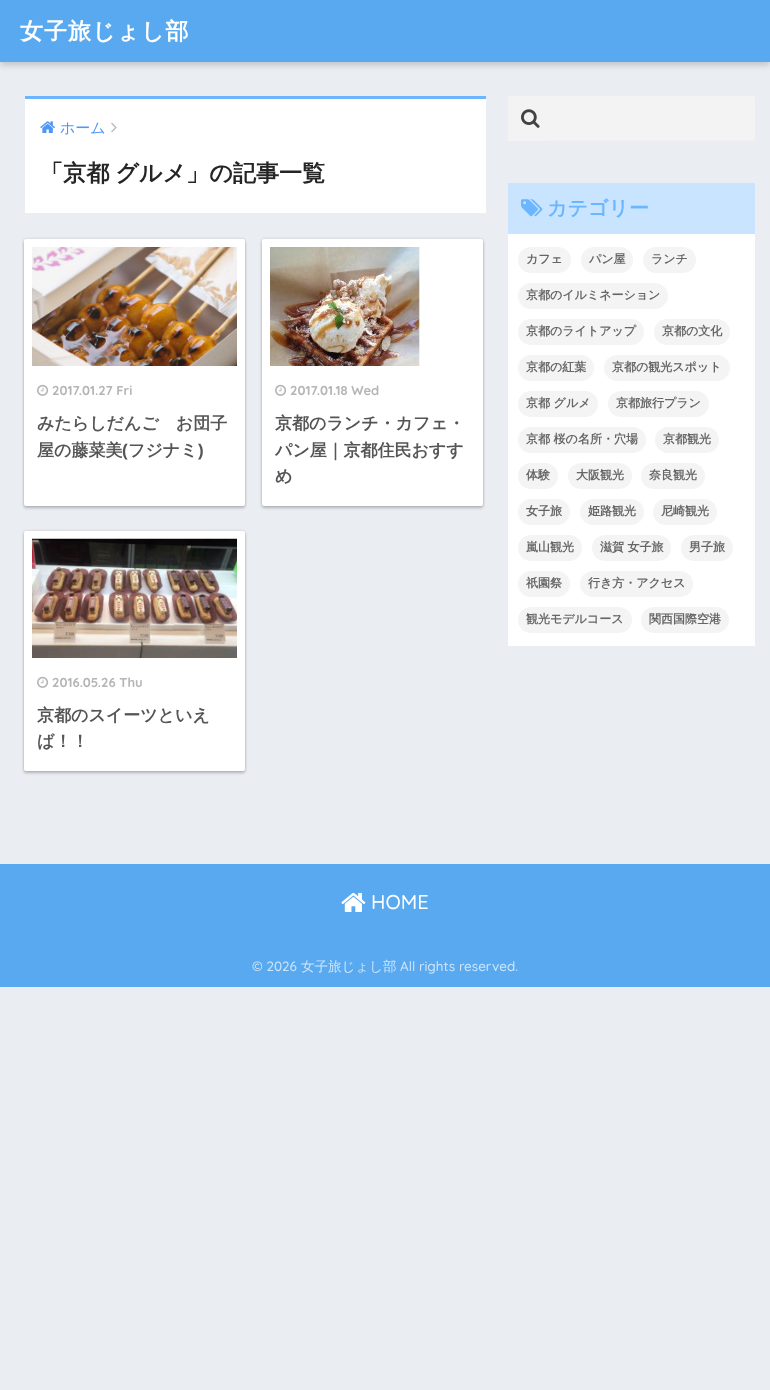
<svg xmlns="http://www.w3.org/2000/svg" width="770" height="1390">
<style>
.a{font:bold 23px WenQuanYi Zen Hei;letter-spacing:1px;fill:#fff}
.b{font:500 15px WenQuanYi Zen Hei;fill:#4f96f6}
.c{font:bold 23.1px WenQuanYi Zen Hei;fill:#252525}
.d{font:bold 13px Quicksand;fill:#b5b5b5}
.e{font:bold 17px WenQuanYi Zen Hei;fill:#555}
.f{font:bold 17px Liberation Sans;fill:#555}
.g{font:bold 20px WenQuanYi Zen Hei;fill:#6bb6ff}
.h{font:bold 12px WenQuanYi Zen Hei;fill:#666}
.i{font:500 20px Quicksand;fill:#fff}
.j{font:500 13.5px Quicksand;fill:#cde5fa}
.k{font:500 13.5px WenQuanYi Zen Hei;fill:#cde5fa}
</style>
<rect width="100%" height="100%" fill="#eaedf2"/>
<path fill="#0000002e" filter="blur(3px)" d="M0 3h770v62H0z"/>
<path fill="#58a9ef" d="M0 0h770v62H0z"/>
<path fill="#fff" d="M25 99h461v114H25z"/>
<path fill="#6bb6ff" d="M25 96h461v3H25z"/>
<image href="1.png" x="40" y="121" width="15" height="12"/>
<image href="2.png" x="111" y="122" width="6" height="11"/>
<rect fill="#00000038" filter="blur(1.5px)" x="24" y="241" width="221" height="267" rx="2"/>
<rect fill="#0000001f" filter="blur(1.5px)" x="24" y="239" width="221" height="267" rx="2"/>
<rect fill="#fff" x="24" y="239" width="221" height="267" rx="2"/>
<image href="3.png" x="32" y="247" width="205" height="119"/>
<image href="4.png" x="37" y="384" width="12" height="12"/>
<rect fill="#00000038" filter="blur(1.5px)" x="262" y="241" width="221" height="267" rx="2"/>
<rect fill="#0000001f" filter="blur(1.5px)" x="262" y="239" width="221" height="267" rx="2"/>
<rect fill="#fff" x="262" y="239" width="221" height="267" rx="2"/>
<image href="5.png" x="270" y="247" width="150" height="119"/>
<image href="4.png" x="275" y="384" width="12" height="12"/>
<rect fill="#00000038" filter="blur(1.5px)" x="24" y="533" width="221" height="240" rx="2"/>
<rect fill="#0000001f" filter="blur(1.5px)" x="24" y="531" width="221" height="240" rx="2"/>
<rect fill="#fff" x="24" y="531" width="221" height="240" rx="2"/>
<image href="6.png" x="32" y="538" width="205" height="120"/>
<image href="4.png" x="37" y="676" width="12" height="12"/>
<rect fill="#f3f3f3" x="508" y="96" width="247" height="45" rx="3"/>
<path fill="#efefef" d="M550 140h204v1H550z"/>
<path fill="#f3f3f3" d="M508 96h42c1.5 0 3 1.5 3 3v39c0 1.5-1.5 3-3 3h-42z"/>
<image href="7.png" x="521" y="109" width="19" height="19"/>
<path fill="#fff" d="M508 234h247v412H508z"/>
<path fill="#c8e4ff" d="M508 183h247v51H508z"/>
<image href="8.png" x="521" y="199" width="22" height="18"/>
<rect fill="#f4f4f4" x="518" y="247" width="53" height="26" rx="13"/>
<rect fill="#f4f4f4" x="581" y="247" width="52" height="26" rx="13"/>
<rect fill="#f4f4f4" x="643" y="247" width="53" height="26" rx="13"/>
<rect fill="#f4f4f4" x="518" y="283" width="150" height="26" rx="13"/>
<rect fill="#f4f4f4" x="518" y="319" width="126" height="26" rx="13"/>
<rect fill="#f4f4f4" x="654" y="319" width="76" height="26" rx="13"/>
<rect fill="#f4f4f4" x="518" y="355" width="76" height="26" rx="13"/>
<rect fill="#f4f4f4" x="604" y="355" width="126" height="26" rx="13"/>
<rect fill="#f4f4f4" x="518" y="391" width="80" height="26" rx="13"/>
<rect fill="#f4f4f4" x="608" y="391" width="101" height="26" rx="13"/>
<rect fill="#f4f4f4" x="518" y="427" width="128" height="26" rx="13"/>
<rect fill="#f4f4f4" x="655" y="427" width="64" height="26" rx="13"/>
<rect fill="#f4f4f4" x="518" y="463" width="40" height="26" rx="13"/>
<rect fill="#f4f4f4" x="568" y="463" width="64" height="26" rx="13"/>
<rect fill="#f4f4f4" x="641" y="463" width="64" height="26" rx="13"/>
<rect fill="#f4f4f4" x="518" y="499" width="52" height="26" rx="13"/>
<rect fill="#f4f4f4" x="580" y="499" width="64" height="26" rx="13"/>
<rect fill="#f4f4f4" x="653" y="499" width="64" height="26" rx="13"/>
<rect fill="#f4f4f4" x="518" y="535" width="64" height="26" rx="13"/>
<rect fill="#f4f4f4" x="592" y="535" width="79" height="26" rx="13"/>
<rect fill="#f4f4f4" x="681" y="535" width="52" height="26" rx="13"/>
<rect fill="#f4f4f4" x="518" y="571" width="52" height="26" rx="13"/>
<rect fill="#f4f4f4" x="580" y="571" width="113" height="26" rx="13"/>
<rect fill="#f4f4f4" x="518" y="607" width="114" height="26" rx="13"/>
<rect fill="#f4f4f4" x="641" y="607" width="88" height="26" rx="13"/>
<path fill="#58a9ef" d="M0 864h770v123H0z"/>
<image href="9.png" x="341" y="892" width="25" height="20"/>
<text class="a" x="20" y="39">女子旅じょし部</text>
<text class="b" x="60" y="133">ホーム</text>
<text class="c" x="40" y="181" word-spacing="-1">「京都 グルメ」の記事一覧</text>
<text class="d" x="52" y="395">2017.01.27 Fri</text>
<text class="e" x="37" y="429">みたらしだんご　お団子</text>
<text class="e" x="37" y="456">屋の藤菜美</text>
<text class="f" x="122" y="456">(</text>
<text class="e" x="128" y="456">フジナミ</text>
<text class="f" x="198" y="456">)</text>
<text class="d" x="290" y="395">2017.01.18 Wed</text>
<text class="e" x="275" y="429">京都のランチ・カフェ・</text>
<text class="e" x="275" y="456">パン屋｜京都住民おすす</text>
<text class="e" x="275" y="482">め</text>
<text class="d" x="52" y="687">2016.05.26 Thu</text>
<text class="e" x="37" y="721">京都のスイーツといえ</text>
<text class="e" x="37" y="747">ば！！</text>
<text class="g" x="547" y="215">カテゴリー</text>
<text class="h" x="526" y="263">カフェ</text>
<text class="h" x="589" y="263">パン屋</text>
<text class="h" x="651" y="263">ランチ</text>
<text class="h" x="526" y="299">京都のイルミネーション</text>
<text class="h" x="526" y="335">京都のライトアップ</text>
<text class="h" x="662" y="335">京都の文化</text>
<text class="h" x="526" y="371">京都の紅葉</text>
<text class="h" x="612" y="371">京都の観光スポット</text>
<text class="h" x="526" y="407">京都 グルメ</text>
<text class="h" x="616" y="407">京都旅行プラン</text>
<text class="h" x="526" y="443">京都 桜の名所・穴場</text>
<text class="h" x="663" y="443">京都観光</text>
<text class="h" x="526" y="479">体験</text>
<text class="h" x="576" y="479">大阪観光</text>
<text class="h" x="649" y="479">奈良観光</text>
<text class="h" x="526" y="515">女子旅</text>
<text class="h" x="588" y="515">姫路観光</text>
<text class="h" x="661" y="515">尼崎観光</text>
<text class="h" x="526" y="551">嵐山観光</text>
<text class="h" x="600" y="551">滋賀 女子旅</text>
<text class="h" x="689" y="551">男子旅</text>
<text class="h" x="526" y="587">祇園祭</text>
<text class="h" x="588" y="587">行き方・アクセス</text>
<text class="h" x="526" y="623">観光モデルコース</text>
<text class="h" x="649" y="623">関西国際空港</text>
<text class="i" x="371" y="909">HOME</text>
<text class="j" x="252" y="971">© 2026</text>
<text class="k" x="301" y="971">女子旅じょし部</text>
<text class="j" x="400" y="971">All rights reserved.</text>
</svg>
